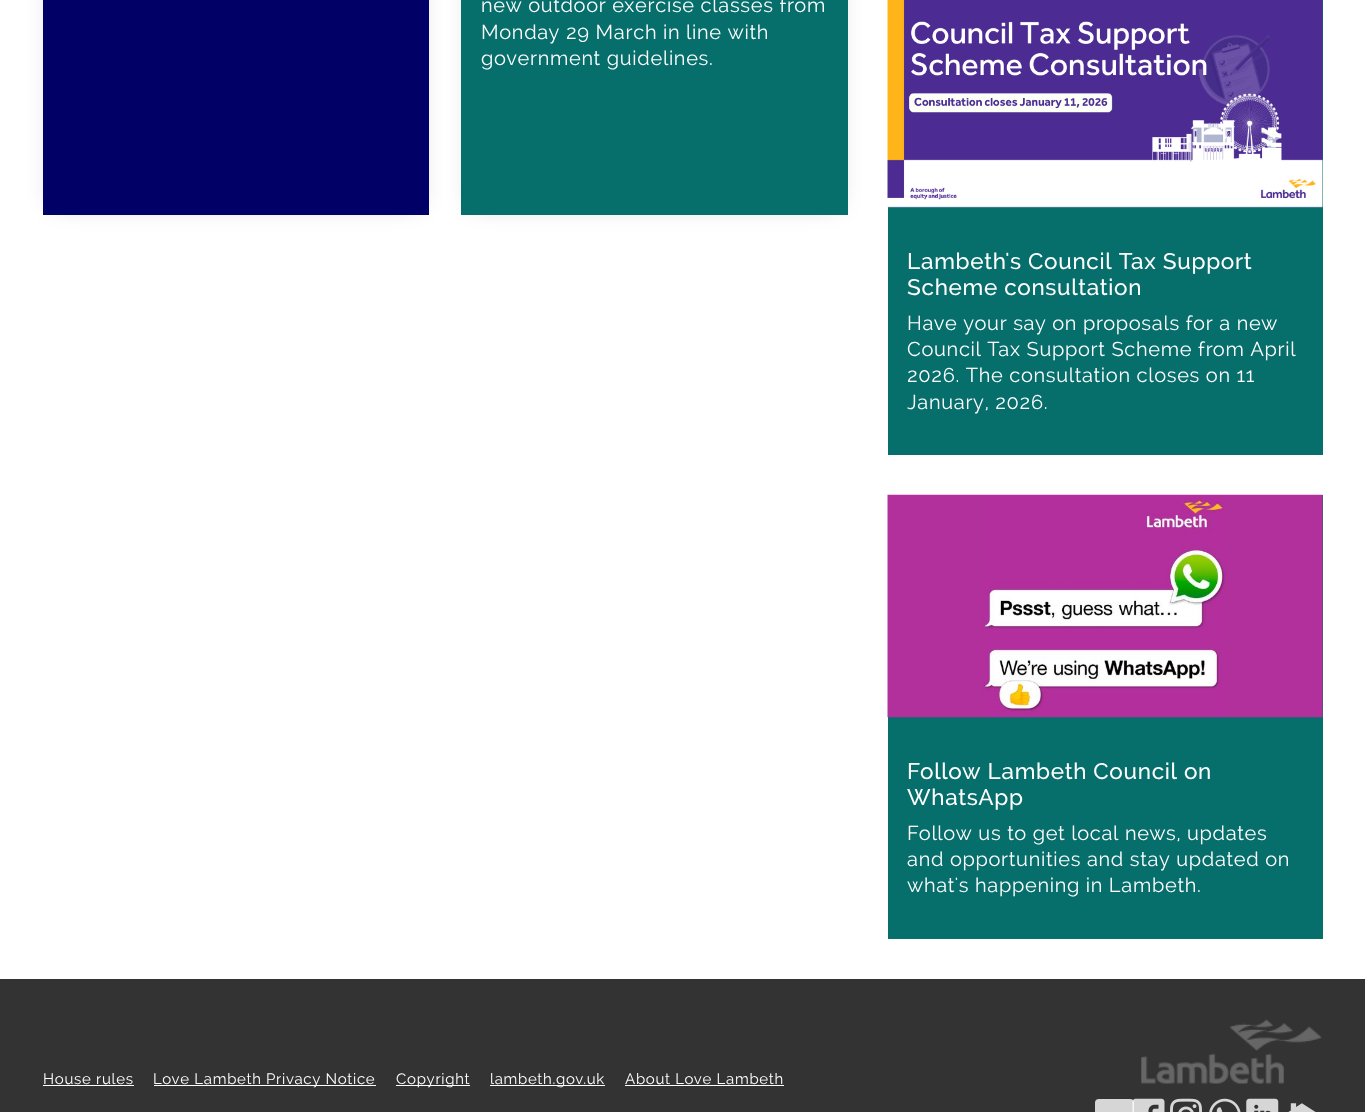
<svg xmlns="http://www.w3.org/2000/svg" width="1365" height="1112">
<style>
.a{font:20px Raleway;letter-spacing:0.7px;fill:#fff}
.b{font:500 22.5px Raleway;letter-spacing:0.7px;fill:#fff}
.c{font:15px Raleway;letter-spacing:0.7px;fill:#fff}
</style>
<rect width="100%" height="100%" fill="#fff"/>
<path fill="#00000040" filter="blur(12.5px)" d="M54 -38h364v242H54z"/>
<path fill="#006" d="M43 0h386v215H43z"/>
<path fill="#00000040" filter="blur(12.5px)" d="M473 -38h363v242H473z"/>
<path fill="#066e6b" d="M461 0h387v215H461z"/>
<path fill="#066e6b" d="M888 0h435v455H888z"/>
<image href="1.png" x="887" y="0" width="436" height="208"/>
<path fill="#066e6b" d="M888 495h435v444H888z"/>
<image href="2.png" x="887" y="494" width="436" height="224"/>
<path fill="#333" d="M0 979h1365v133H0z"/>
<path fill="#fff" d="M43 1085h91v1H43z"/>
<path fill="#fff" d="M154 1085h222v1H154z"/>
<path fill="#fff" d="M396 1085h74v1H396z"/>
<path fill="#fff" d="M490 1085h115v1H490z"/>
<path fill="#fff" d="M625 1085h159v1H625z"/>
<image href="3.png" x="1141" y="1019" width="181" height="65"/>
<rect fill="#d6d6d6" x="1095" y="1099" width="39" height="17" rx="4"/>
<image href="4.png" x="1132" y="1098" width="33" height="14"/>
<image href="5.png" x="1170" y="1098" width="32" height="14"/>
<image href="6.png" x="1209" y="1098" width="32" height="14"/>
<image href="7.png" x="1246" y="1098" width="33" height="14"/>
<image href="8.png" x="1288" y="1103" width="28" height="9"/>
<text class="a" x="481" y="12">new outdoor exercise classes from</text>
<text class="a" x="481" y="39">Monday 29 March in line with</text>
<text class="a" x="481" y="65">government guidelines.</text>
<text class="b" x="907" y="269">Lambeth's Council Tax Support</text>
<text class="b" x="907" y="295">Scheme consultation</text>
<text class="a" x="907" y="330">Have your say on proposals for a new</text>
<text class="a" x="907" y="356">Council Tax Support Scheme from April</text>
<text class="a" x="907" y="382">2026. The consultation closes on 11</text>
<text class="a" x="907" y="409">January, 2026.</text>
<text class="b" x="907" y="779">Follow Lambeth Council on</text>
<text class="b" x="907" y="805">WhatsApp</text>
<text class="a" x="907" y="840">Follow us to get local news, updates</text>
<text class="a" x="907" y="866">and opportunities and stay updated on</text>
<text class="a" x="907" y="892">what's happening in Lambeth.</text>
<text class="c" x="43" y="1084">House rules</text>
<text class="c" x="153" y="1084">Love Lambeth Privacy Notice</text>
<text class="c" x="396" y="1084">Copyright</text>
<text class="c" x="490" y="1084">lambeth.gov.uk</text>
<text class="c" x="625" y="1084">About Love Lambeth</text>
</svg>
